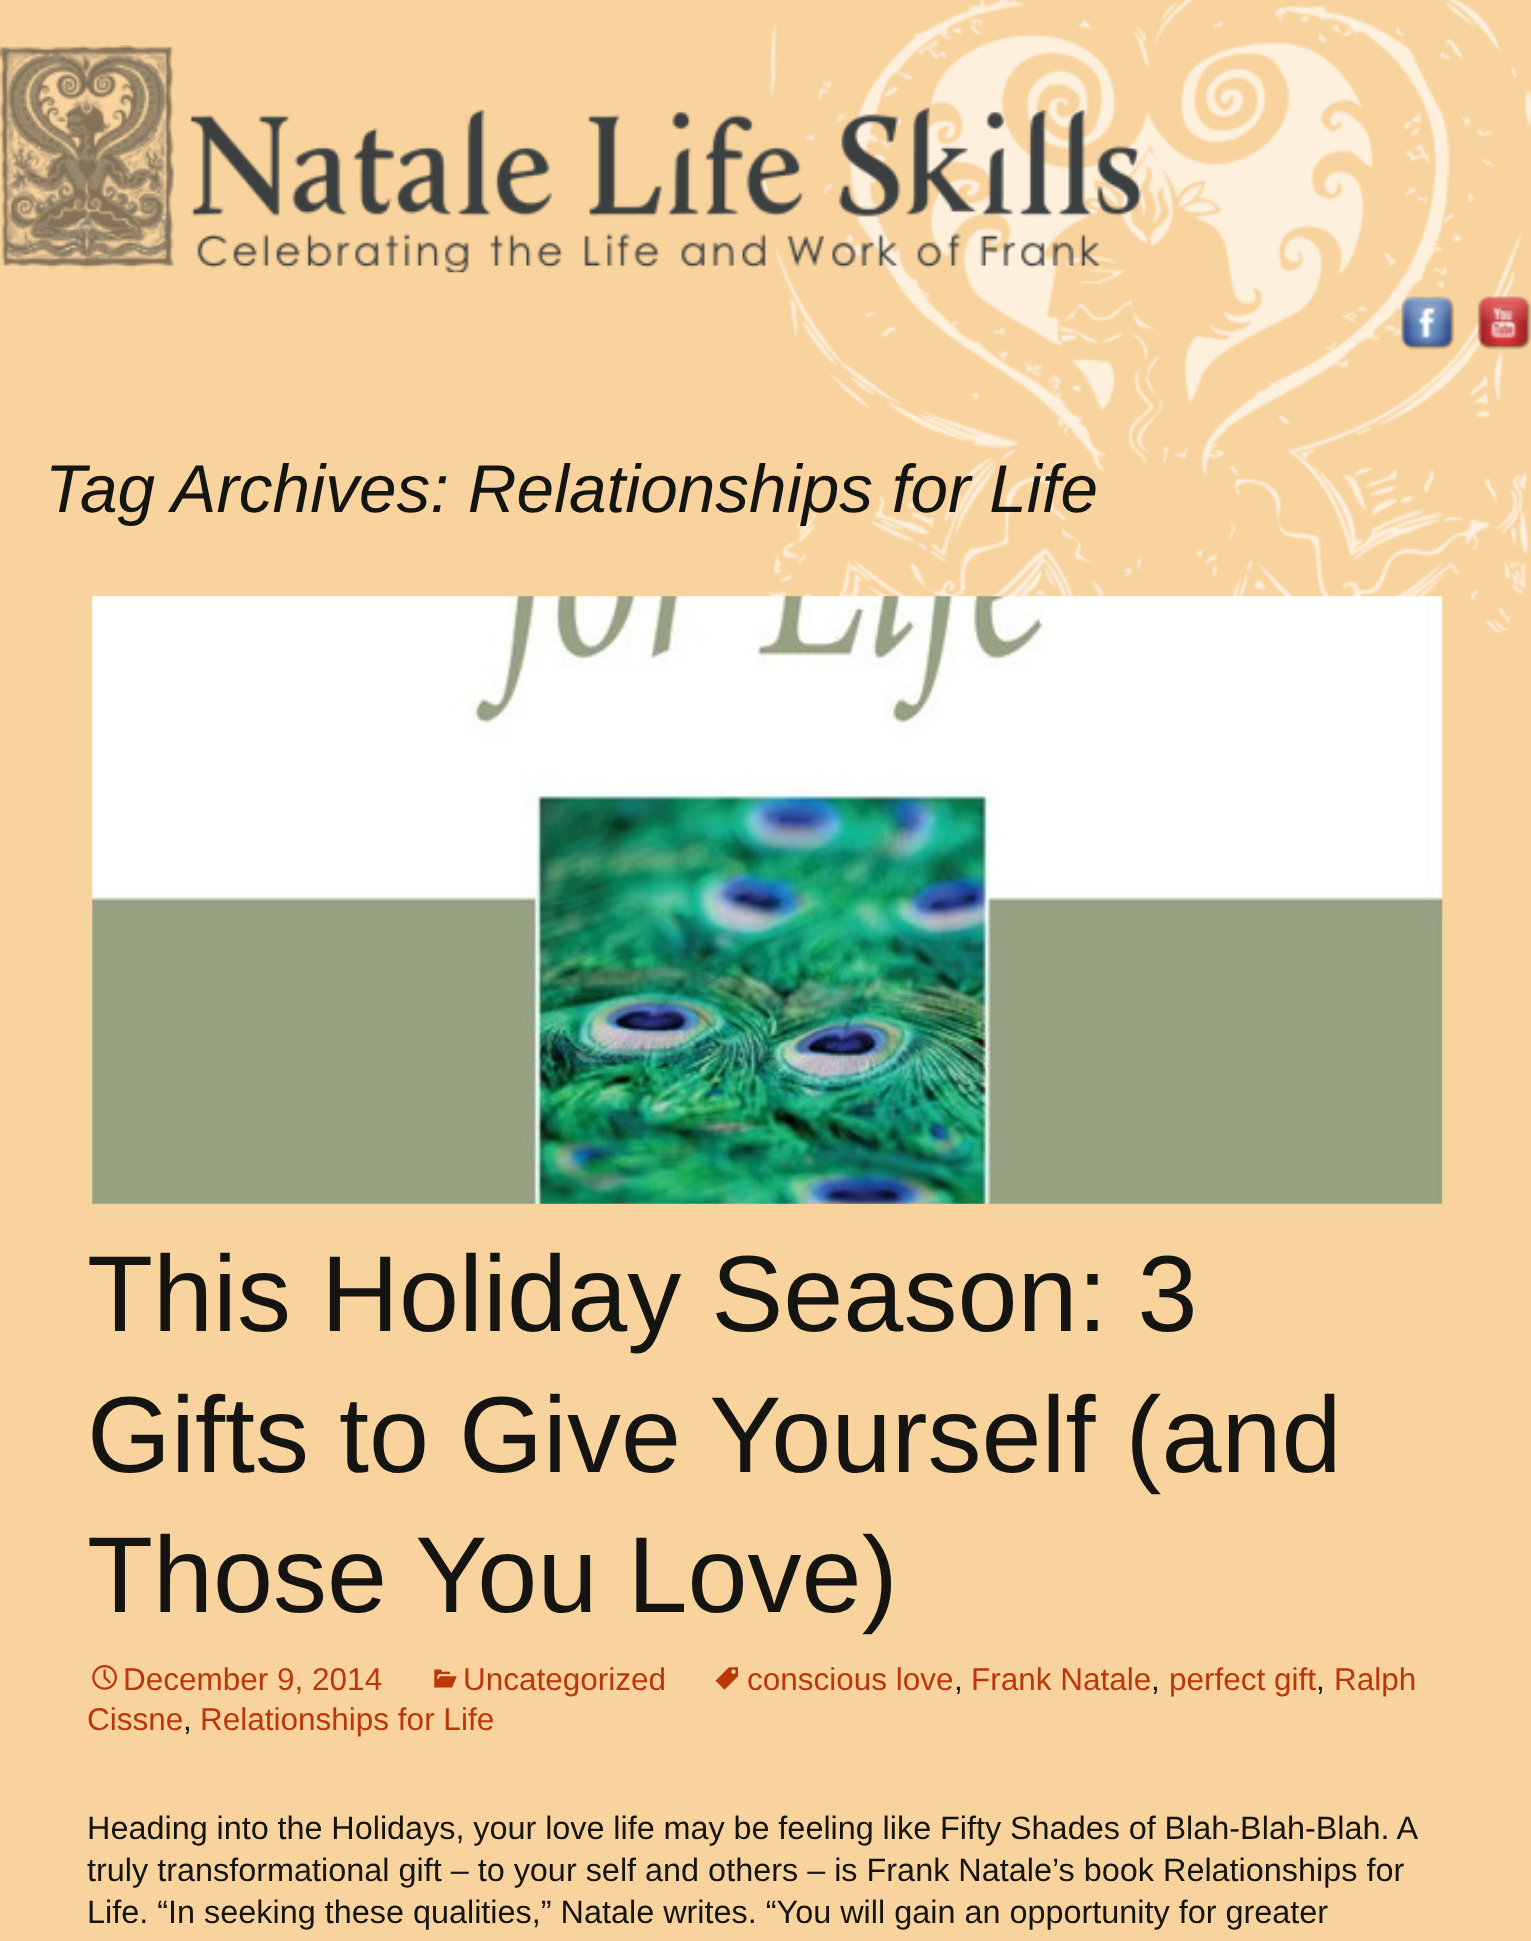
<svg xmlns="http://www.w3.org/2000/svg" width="1531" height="1941">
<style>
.a{font:italic 67.5px Liberation Sans;fill:#141412}
.b{font:108px Liberation Sans;fill:#141412}
.c{font:31.5px Liberation Sans;fill:#bc360a}
.d{font:31.5px Liberation Sans;fill:#141412}
.e{font:32.4px Liberation Sans;fill:#141412}
</style>
<rect width="100%" height="100%" fill="#f8d39d"/>
<image href="1.png" x="762" y="0" width="769" height="634"/>
<image href="2.png" x="0" y="45" width="1142" height="228"/>
<image href="3.png" x="1401" y="296" width="54" height="54"/>
<image href="4.png" x="1477" y="296" width="54" height="54"/>
<image href="5.png" x="92" y="596" width="1351" height="608"/>
<image href="6.png" x="715" y="1667" width="23" height="23"/>
<image href="7.png" x="92" y="1665" width="25" height="25"/>
<image href="8.png" x="434" y="1669" width="23" height="19"/>
<text class="a" x="45" y="512">Tag Archives: Relationships for Life</text>
<text class="b" x="87" y="1331">This Holiday Season: 3</text>
<text class="b" x="87" y="1472">Gifts to Give Yourself (and</text>
<text class="b" x="87" y="1612">Those You Love)</text>
<text class="c" x="747" y="1690">conscious love</text>
<text class="d" x="954" y="1690">,</text>
<text class="c" x="971" y="1690">Frank Natale</text>
<text class="d" x="1151" y="1690">,</text>
<text class="c" x="1169" y="1690">perfect gift</text>
<text class="d" x="1316" y="1690">,</text>
<text class="c" x="1334" y="1690">Ralph</text>
<text class="c" x="87" y="1730">Cissne</text>
<text class="d" x="183" y="1730">,</text>
<text class="c" x="200" y="1730">Relationships for Life</text>
<text class="c" x="123" y="1690">December 9, 2014</text>
<text class="c" x="463" y="1690">Uncategorized</text>
<text class="e" x="87" y="1839" word-spacing="-0.2">Heading into the Holidays, your love life may be feeling like Fifty Shades of Blah-Blah-Blah. A</text>
<text class="e" x="87" y="1881">truly transformational gift – to your self and others – is Frank Natale’s book Relationships for</text>
<text class="e" x="87" y="1923">Life. “In seeking these qualities,” Natale writes. “You will gain an opportunity for greater</text>
</svg>
